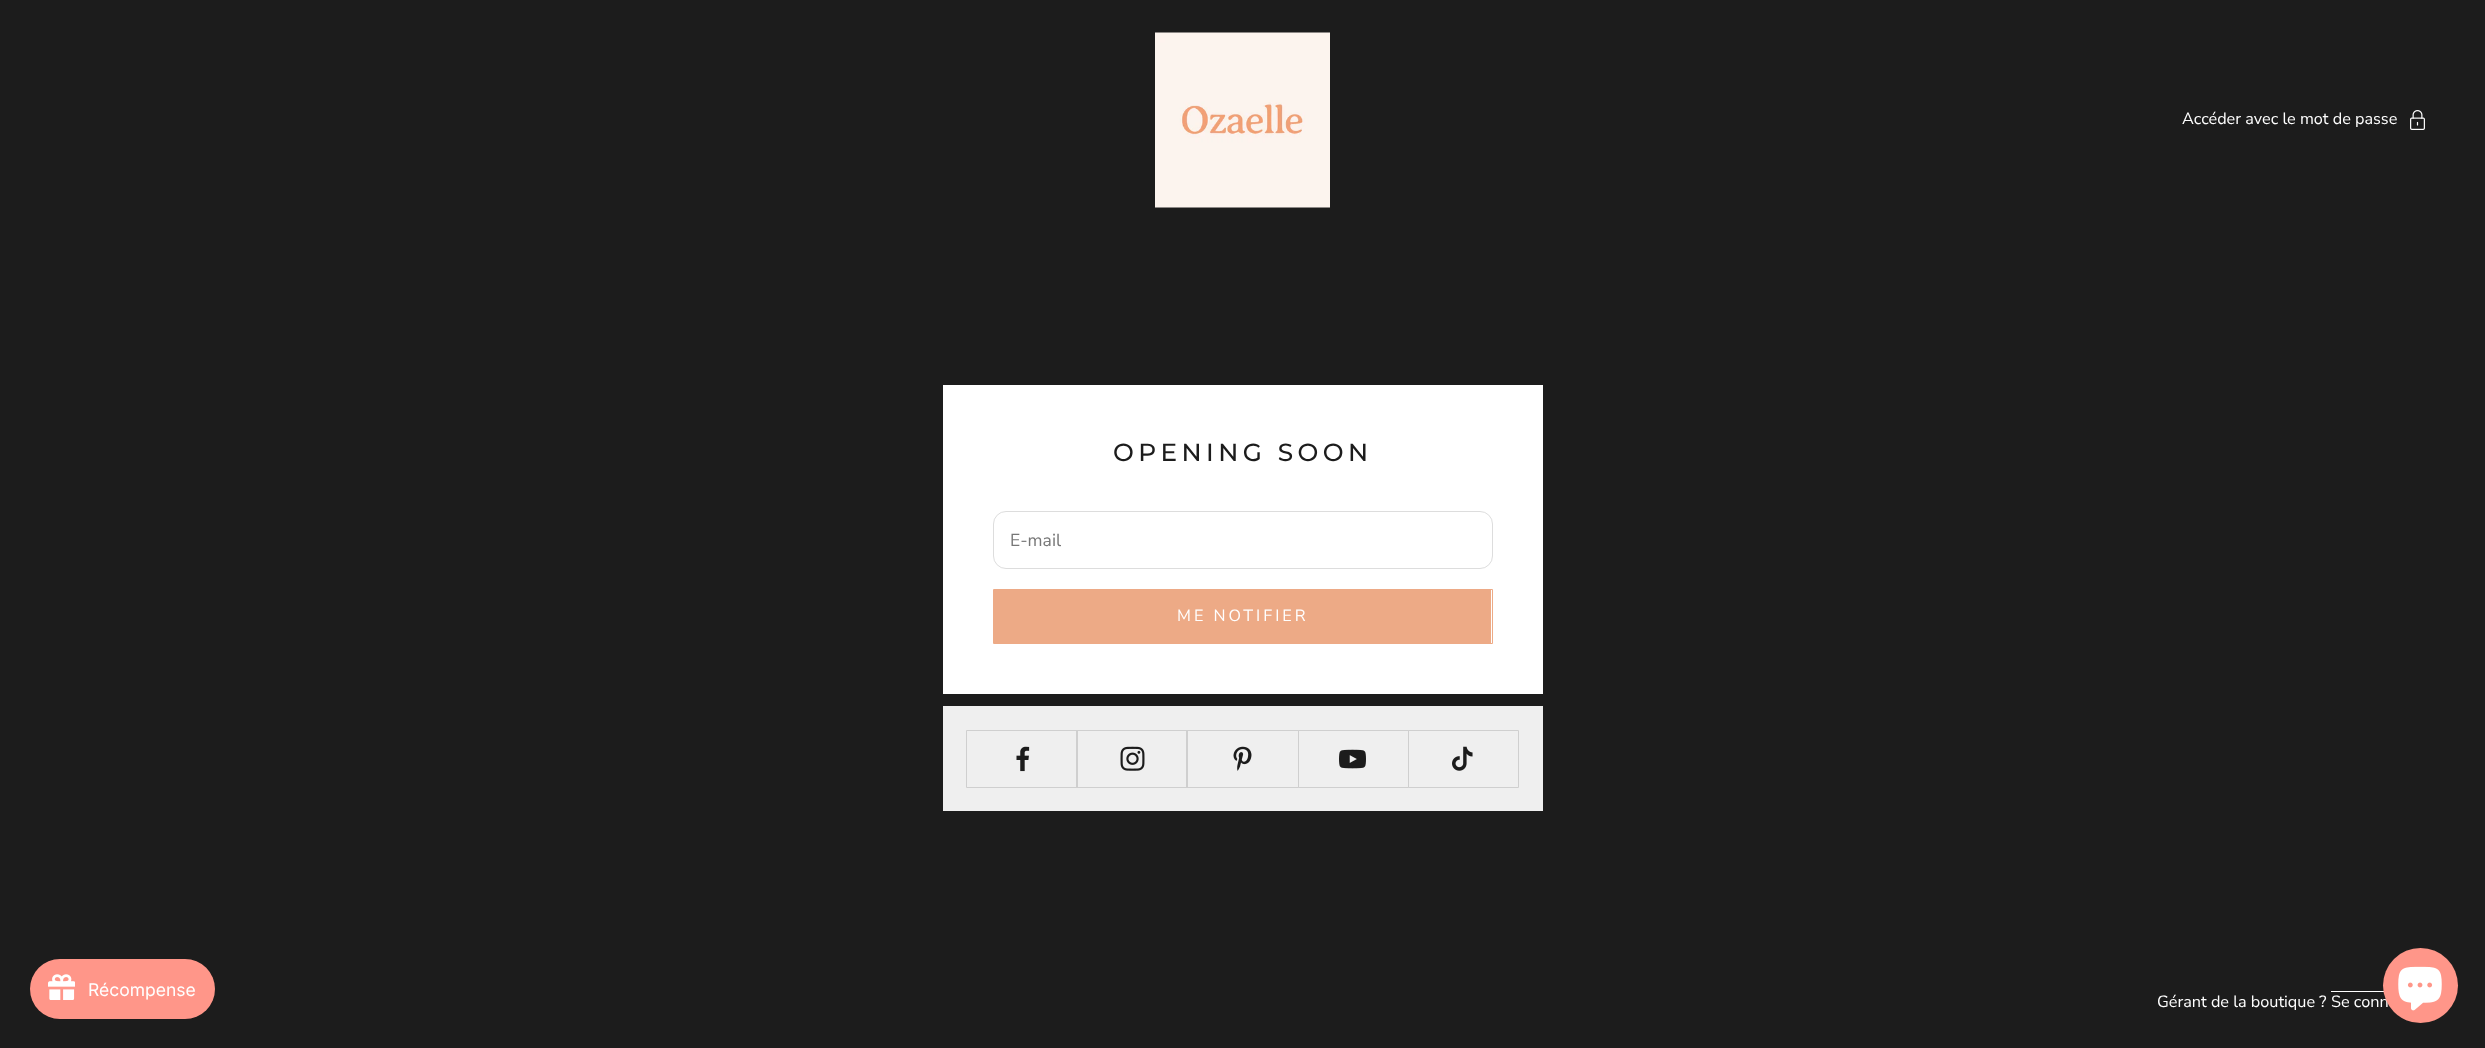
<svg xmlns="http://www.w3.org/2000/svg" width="2485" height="1048">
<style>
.a{font:17.5px Inter;fill:#fff}
.b{font:16.25px Nunito Sans;fill:#fff}
.c{font:500 24.75px Montserrat;letter-spacing:4.5px;fill:#1c1c1c}
.d{font:17.5px Nunito Sans;fill:#777}
.e{font:16.25px Nunito Sans;letter-spacing:3px;fill:#fff}
</style>
<rect width="100%" height="100%" fill="#1c1c1c"/>
<rect fill="#ff9689" x="30" y="959" width="185" height="60" rx="30"/>
<image href="1.png" x="48" y="974" width="27" height="26"/>
<image href="2.png" x="1155" y="32" width="175" height="176"/>
<image href="3.png" x="2410" y="110" width="15" height="20"/>
<path fill="#fff" d="M943 385h600v309H943z"/>
<rect fill="none" stroke="#ddd" x="993.5" y="511.5" width="499" height="57" rx="12.5"/>
<path fill="#edaa86" d="M994 590h497v53H994z"/>
<path fill="none" stroke="#edaa86" d="M993.5 589.5h499v54H993.5z"/>
<path fill="#efefef" d="M943 706h600v105H943z"/>
<path fill="none" stroke="#cfcfcf" d="M966.5 730.5h111v57H966.5z"/>
<image href="4.png" x="1016" y="746" width="14" height="26"/>
<path fill="none" stroke="#cfcfcf" d="M1076.5 730.5h111v57H1076.5z"/>
<image href="5.png" x="1120" y="746" width="25" height="25"/>
<path fill="none" stroke="#cfcfcf" d="M1186.5 730.5h112v57H1186.5z"/>
<image href="6.png" x="1233" y="746" width="19" height="25"/>
<path fill="none" stroke="#cfcfcf" d="M1298.5 730.5h110v57H1298.5z"/>
<image href="7.png" x="1339" y="749" width="27" height="20"/>
<path fill="none" stroke="#cfcfcf" d="M1408.5 730.5h110v57H1408.5z"/>
<image href="8.png" x="1452" y="746" width="21" height="25"/>
<path fill="#fff" d="M2331 991h53v1H2331z"/>
<text class="a" x="88" y="996">Récompense</text>
<text class="b" x="2182" y="124">Accéder avec le mot de passe</text>
<text class="c" x="1113" y="461">OPENING SOON</text>
<text class="d" x="1010" y="546">E-mail</text>
<text class="e" x="1177" y="621">ME NOTIFIER</text>
<text class="b" x="2157" y="1007">Gérant de la boutique ?</text>
<text class="b" x="2331" y="1007">Se conn</text>
<circle fill="#ff9689" cx="2420.5" cy="985.5" r="37.5"/>
<image href="9.png" x="2398" y="966" width="44" height="45"/>
</svg>
